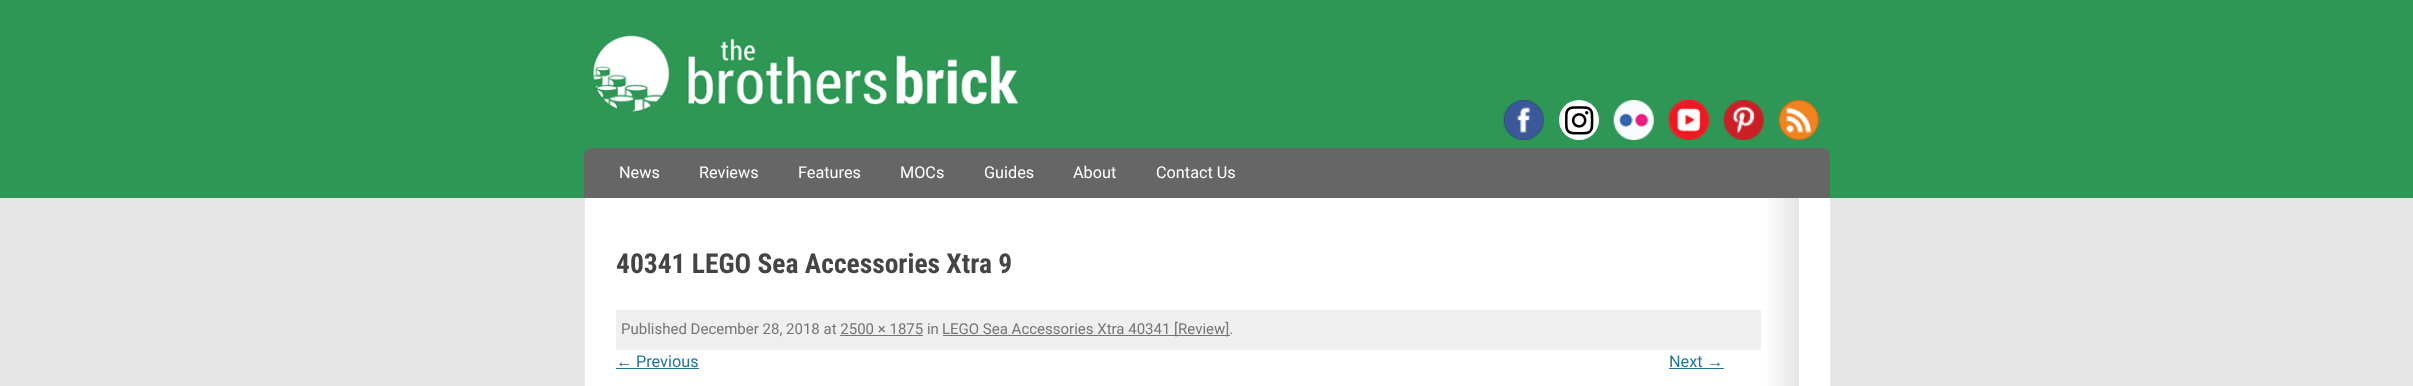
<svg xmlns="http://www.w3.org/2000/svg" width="2413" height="386">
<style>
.a{font:16.25px Roboto;fill:#fff}
.b{font:bold 27.5px Roboto Condensed;fill:#444}
.c{font:15px Roboto;fill:#757575}
.d{font:16.25px Liberation Sans;fill:#21769b}
.e{font:16.25px Roboto;fill:#21769b}
</style>
<defs>
<linearGradient id="g1" gradientUnits="userSpaceOnUse" x1="616" y1="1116" x2="1799" y2="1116"><stop offset="0.97" stop-color="#fff"/><stop offset="1" stop-color="#e5e5e5"/></linearGradient>
</defs>
<rect width="100%" height="100%" fill="#e6e6e6"/>
<path fill="#2e9755" d="M0 0h2413v198H0z"/>
<image href="1.png" x="592" y="34" width="427" height="79"/>
<image href="2.png" x="1503" y="100" width="41" height="40"/>
<circle fill="#fff" cx="1579" cy="120" r="20"/>
<image href="3.png" x="1565" y="106" width="29" height="29"/>
<image href="4.png" x="1613" y="100" width="41" height="40"/>
<image href="5.png" x="1668" y="100" width="41" height="40"/>
<image href="6.png" x="1723" y="100" width="41" height="40"/>
<image href="7.png" x="1778" y="100" width="41" height="40"/>
<path fill="#666" d="M592 148h1230c4.5 0 8 3.5 8 8v42h-1246v-42c0-4.5 3.5-8 8-8z"/>
<path fill="#fff" d="M585 198h1245v188H585z"/>
<path fill="url(#g1)" d="M1767 198h32v188H1767z"/>
<path fill="#efefef" d="M616 310h1145v40H616z"/>
<path fill="#757575" d="M943 335h287v1H943z"/>
<path fill="#757575" d="M840 335h83v1H840z"/>
<path fill="#21769b" d="M616 368h83v1H616z"/>
<path fill="#21769b" d="M1669 368h55v1H1669z"/>
<text class="a" x="619" y="178">News</text>
<text class="a" x="699" y="178">Reviews</text>
<text class="a" x="798" y="178">Features</text>
<text class="a" x="900" y="178">MOCs</text>
<text class="a" x="984" y="178">Guides</text>
<text class="a" x="1073" y="178">About</text>
<text class="a" x="1156" y="178">Contact Us</text>
<text class="b" x="616" y="273">40341 LEGO Sea Accessories Xtra 9</text>
<text class="c" x="621" y="334">Published December 28, 2018 at 2500 × 1875 in</text>
<text class="c" x="942" y="334">LEGO Sea Accessories Xtra 40341 [Review].</text>
<text class="d" x="616" y="367">←</text>
<text class="e" x="636" y="367">Previous</text>
<text class="e" x="1669" y="367">Next</text>
<text class="d" x="1707" y="367">→</text>
</svg>
